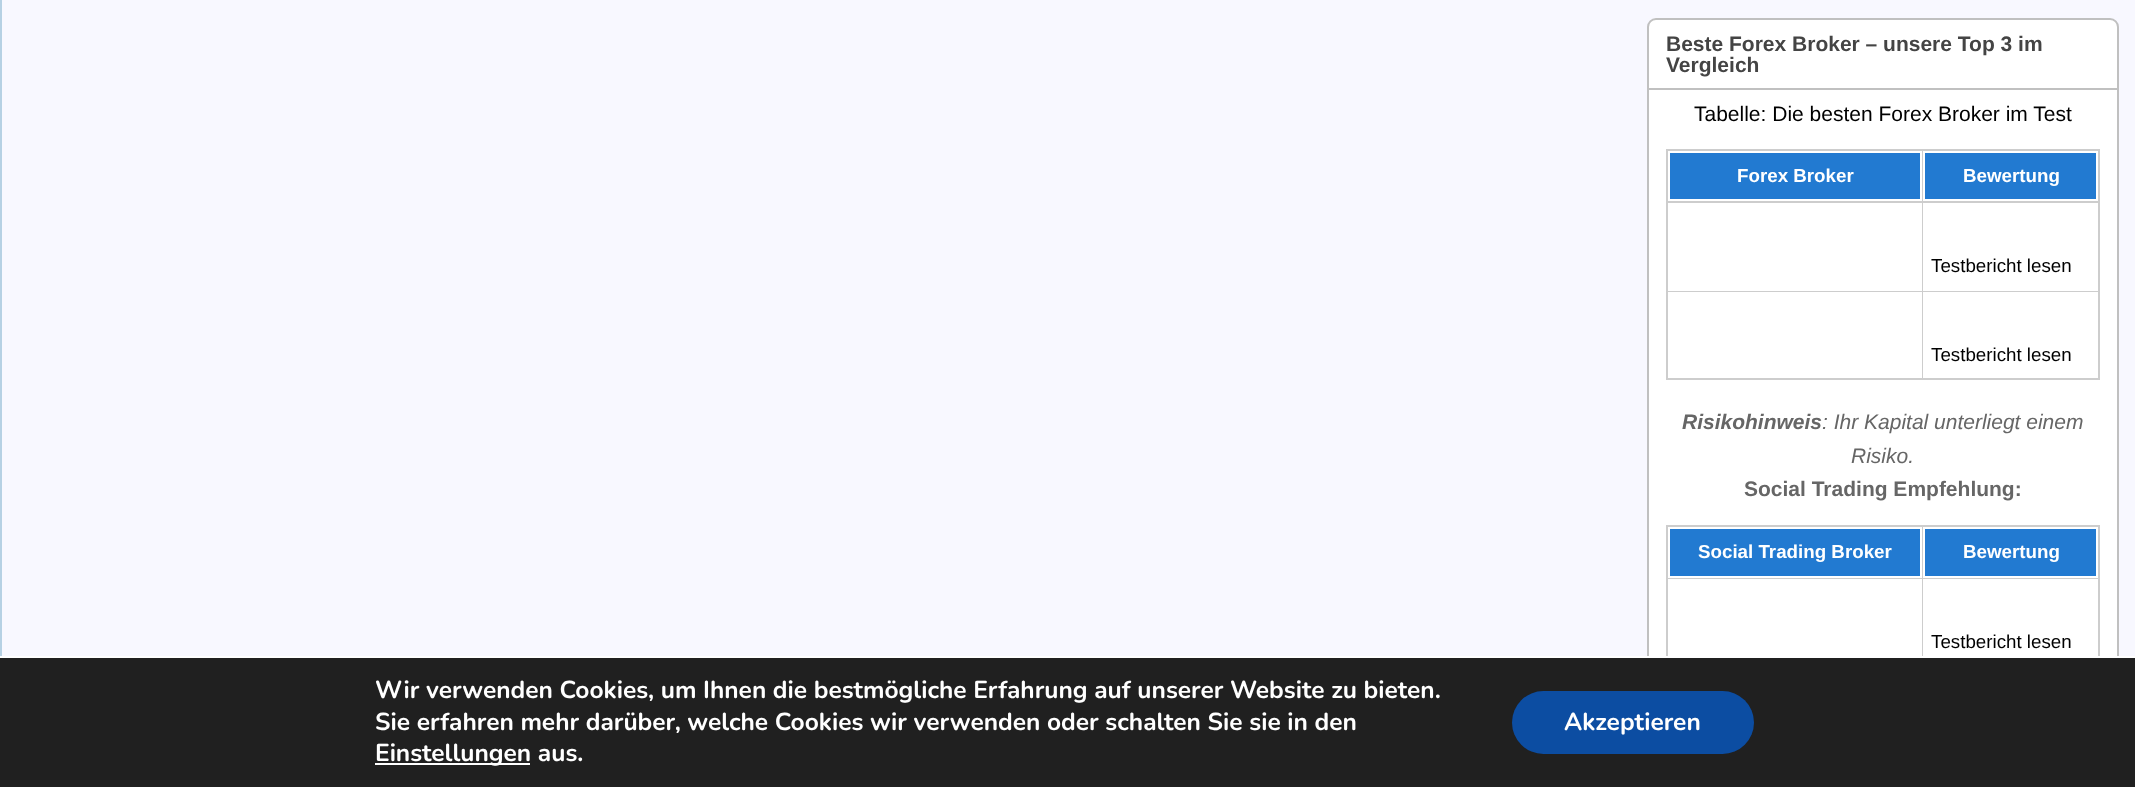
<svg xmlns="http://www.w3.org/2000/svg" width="2135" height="787">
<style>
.a{font:bold 21px Liberation Sans;fill:#444}
.b{font:21px Liberation Sans;fill:#000}
.c{font:bold 18.75px Liberation Sans;fill:#fff}
.d{font:18.75px Liberation Sans;fill:#000}
.e{font:italic bold 21px Liberation Sans;fill:#666}
.f{font:italic 21px Liberation Sans;fill:#666}
.g{font:bold 21px Liberation Sans;fill:#666}
.h{font:bold 24.5px Nunito;fill:#fff}
</style>
<rect width="100%" height="100%" fill="#f8f8ff"/>
<path fill="none" stroke="#b6d1e4" stroke-width="2" d="M1 -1h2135v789H1z"/>
<rect fill="#fff" stroke="#c0c0c0" stroke-width="2" x="1648" y="19" width="470" height="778" rx="8"/>
<path fill="#c0c0c0" d="M1649 88h469v2H1649z"/>
<path fill="#cdcdcd" d="M1666 149h434v231H1666z"/>
<path fill="#227ad1" stroke="#fff" stroke-width="2" d="M1669 152h252v48H1669z"/>
<path fill="#227ad1" stroke="#fff" stroke-width="2" d="M1924 152h173v48H1924z"/>
<path fill="#fff" d="M1668 203h254v88H1668z"/>
<path fill="#fff" d="M1923 203h175v88H1923z"/>
<path fill="#fff" d="M1668 292h254v86H1668z"/>
<path fill="#fff" d="M1923 292h175v86H1923z"/>
<path fill="#cdcdcd" d="M1666 525h434v131H1666z"/>
<path fill="#227ad1" stroke="#fff" stroke-width="2" d="M1669 528h252v49H1669z"/>
<path fill="#227ad1" stroke="#fff" stroke-width="2" d="M1924 528h173v49H1924z"/>
<path fill="#fff" d="M1668 579h254v77H1668z"/>
<path fill="#fff" d="M1923 579h175v77H1923z"/>
<path fill="#202020" d="M0 658h2135v129H0z"/>
<path fill="#fff" d="M0 656h2135v2H0z"/>
<path fill="#fff" d="M375 763h155v2H375z"/>
<rect fill="#0c4da2" x="1512" y="691" width="242" height="63" rx="31.5"/>
<text class="a" x="1666" y="51">Beste Forex Broker – unsere Top 3 im</text>
<text class="a" x="1666" y="72">Vergleich</text>
<text class="b" x="1694" y="121">Tabelle: Die besten Forex Broker im Test</text>
<text class="c" x="1737" y="182">Forex Broker</text>
<text class="c" x="1963" y="182">Bewertung</text>
<text class="d" x="1931" y="272">Testbericht lesen</text>
<text class="d" x="1931" y="361">Testbericht lesen</text>
<text class="e" x="1682" y="429">Risikohinweis</text>
<text class="f" x="1822" y="429">: Ihr Kapital unterliegt einem</text>
<text class="f" x="1851" y="463">Risiko.</text>
<text class="g" x="1744" y="496">Social Trading Empfehlung:</text>
<text class="c" x="1698" y="558">Social Trading Broker</text>
<text class="c" x="1963" y="558">Bewertung</text>
<text class="d" x="1931" y="648">Testbericht lesen</text>
<text class="h" x="375" y="698">Wir verwenden Cookies, um Ihnen die bestmögliche Erfahrung auf unserer Website zu bieten.</text>
<text class="h" x="375" y="730">Sie erfahren mehr darüber, welche Cookies wir verwenden oder schalten Sie sie in den</text>
<text class="h" x="375" y="761">Einstellungen aus.</text>
<text class="h" x="1564" y="730">Akzeptieren</text>
</svg>
